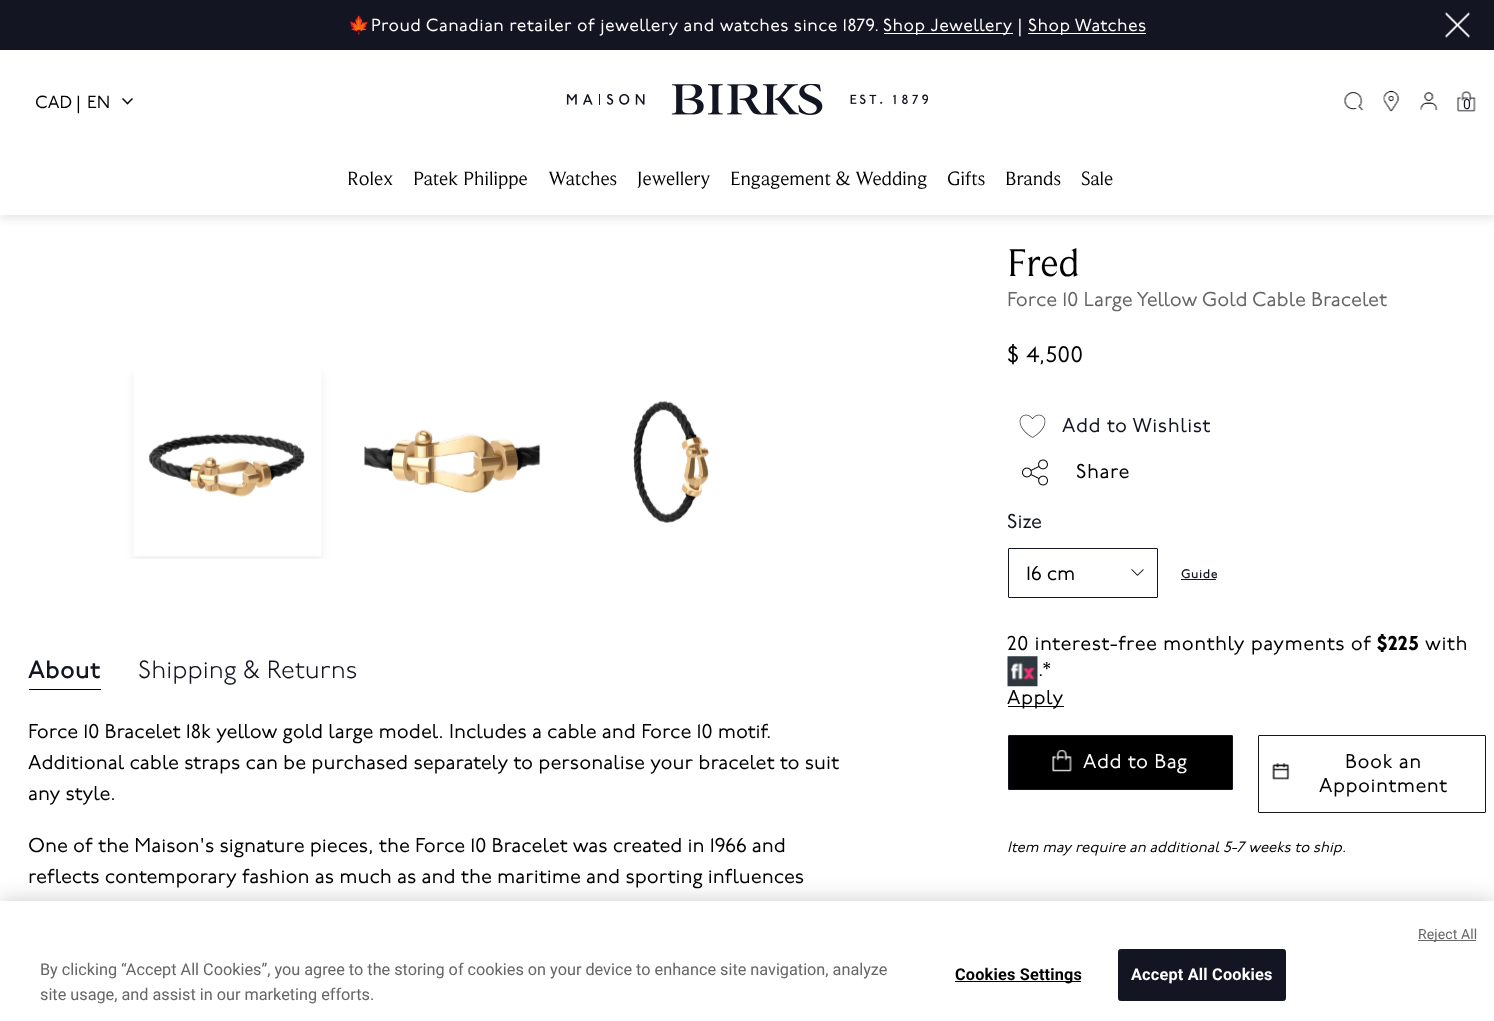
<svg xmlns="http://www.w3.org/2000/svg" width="1494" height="1021">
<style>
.a{font:17.5px Noto Color Emoji;letter-spacing:0.45px;fill:#fff}
.b{font:17.5px 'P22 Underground';letter-spacing:0.45px;fill:#fff}
.c{font:17.5px 'P22 Underground';fill:#000}
.d{font:14px Roboto;fill:#131523}
.e{font:20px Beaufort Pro;fill:#000}
.f{font:500 25px 'P22 Underground';fill:#131523}
.g{font:300 25px 'P22 Underground';fill:#131523}
.h{font:20px 'P22 Underground';fill:#000}
.i{font:40px Beaufort Pro;fill:#000}
.j{font:20px 'P22 Underground';fill:#666}
.k{font:22.5px 'P22 Underground';letter-spacing:0.5px;fill:#000}
.l{font:20px 'P22 Underground';letter-spacing:0.5px;fill:#131523}
.m{font:20px 'P22 Underground';letter-spacing:0.5px;fill:#000}
.n{font:20px 'P22 Underground';fill:#131523}
.o{font:500 12.5px 'P22 Underground';letter-spacing:0.5px;fill:#131523}
.p{font:900 20px 'P22 Underground';letter-spacing:0.5px;fill:#000}
.q{font:20px 'P22 Underground';letter-spacing:0.5px;fill:#fff}
.r{font:italic 15px 'P22 Underground';fill:#000}
.s{font:14px Roboto;letter-spacing:0.1px;fill:#666}
.t{font:16.25px Roboto;fill:#666}
.u{font:bold 16.25px Roboto;letter-spacing:0.2px;fill:#000}
.v{font:bold 16.25px Roboto;letter-spacing:0.2px;fill:#fff}
</style>
<defs>
<clipPath id="clip1"><path d="M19 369h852v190H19z"/></clipPath>
<clipPath id="clip2"><path d="M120 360h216v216h-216zm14 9h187v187h-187z" clip-rule="evenodd"/></clipPath>
</defs>
<rect width="100%" height="100%" fill="#fff"/>
<path fill="#1315231a" filter="blur(4px)" d="M0 4h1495v215H0z"/>
<path fill="#131523" d="M0 0h1494v50H0z"/>
<path fill="#fff" d="M884 33h129v1H884z"/>
<path fill="#fff" d="M1028 33h118v1H1028z"/>
<image href="1.png" x="1445" y="12" width="25" height="26"/>
<path fill="#fff" d="M0 50h1494v165H0z"/>
<image href="2.png" x="566" y="84" width="362" height="31"/>
<path fill="#000" d="M133 99l-5.5 5.5l-1-1l5.5-5.5z"/>
<path fill="#000" d="M128.5 103.5l-1 1l-5.5-5.5l1-1z"/>
<image href="3.png" x="1344" y="92" width="20" height="19"/>
<image href="4.png" x="1383" y="90" width="17" height="22"/>
<image href="5.png" x="1420" y="92" width="18" height="18"/>
<image href="6.png" x="1457" y="91" width="19" height="21"/>
<g clip-path="url(#clip1)">
<g clip-path="url(#clip2)">
<path fill="#0000000d" filter="blur(4px)" d="M133 373h190v190H133z"/>
</g>
</g>
<image href="7.png" x="149" y="433" width="156" height="64"/>
<image href="8.png" x="364" y="429" width="177" height="64"/>
<image href="9.png" x="633" y="400" width="76" height="123"/>
<path fill="#000" d="M29 689h72v1H29z"/>
<image href="10.png" x="1019" y="414" width="27" height="24"/>
<image href="11.png" x="1022" y="459" width="26" height="27"/>
<image href="12.png" x="1131" y="569" width="13" height="7"/>
<rect fill="none" stroke="#131523" x="1008.5" y="548.5" width="149" height="49" rx="0.5"/>
<path fill="#131523" d="M1181 579h35v1H1181z"/>
<image href="13.png" x="1007" y="656" width="31" height="31"/>
<path fill="#000" d="M1008 706h56v1H1008z"/>
<rect fill="#000" stroke="#131523" x="1008.5" y="735.5" width="224" height="54" rx="0.5"/>
<image href="14.png" x="1052" y="750" width="20" height="22"/>
<rect fill="none" stroke="#131523" x="1258.5" y="735.5" width="227" height="77" rx="0.5"/>
<image href="15.png" x="1272" y="763" width="18" height="17"/>
<path fill="#00000033" filter="blur(11px)" d="M0 901h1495v120H0z"/>
<path fill="#fff" d="M0 901h1494v120H0z"/>
<path fill="#696969" d="M1418 940h58v1H1418z"/>
<path fill="#000" d="M955 981h126v1H955z"/>
<rect fill="#131523" stroke="#131523" x="1118.5" y="949.5" width="167" height="51" rx="2"/>
<text class="a" x="348" y="31">🍁</text>
<text class="b" x="371" y="31">Proud Canadian retailer of jewellery and watches since 1879.</text>
<text class="b" x="883" y="31">Shop Jewellery |</text>
<text class="b" x="1028" y="31">Shop Watches</text>
<text class="c" x="35" y="108">CAD |</text>
<text class="c" x="87" y="108">EN</text>
<text class="d" x="1463" y="109">0</text>
<text class="e" x="347" y="185">Rolex</text>
<text class="e" x="413" y="185">Patek Philippe</text>
<text class="e" x="548" y="185">Watches</text>
<text class="e" x="637" y="185">Jewellery</text>
<text class="e" x="730" y="185">Engagement &amp; Wedding</text>
<text class="e" x="947" y="185">Gifts</text>
<text class="e" x="1005" y="185">Brands</text>
<text class="e" x="1081" y="185">Sale</text>
<text class="f" x="28" y="678">About</text>
<text class="g" x="138" y="678">Shipping &amp; Returns</text>
<text class="h" x="28" y="738">Force 10 Bracelet 18k yellow gold large model. Includes a cable and Force 10 motif.</text>
<text class="h" x="28" y="769">Additional cable straps can be purchased separately to personalise your bracelet to suit</text>
<text class="h" x="28" y="800">any style.</text>
<text class="h" x="28" y="852">One of the Maison's signature pieces, the Force 10 Bracelet was created in 1966 and</text>
<text class="h" x="28" y="883">reflects contemporary fashion as much as and the maritime and sporting influences</text>
<text class="i" x="1007" y="276">Fred</text>
<text class="j" x="1007" y="306">Force 10 Large Yellow Gold Cable Bracelet</text>
<text class="k" x="1007" y="362">$ 4,500</text>
<text class="l" x="1062" y="432">Add to Wishlist</text>
<text class="m" x="1076" y="478">Share</text>
<text class="n" x="1007" y="528">Size</text>
<text class="h" x="1026" y="580">16 cm</text>
<text class="o" x="1181" y="578">Guide</text>
<text class="m" x="1007" y="650">20 interest-free monthly payments of</text>
<text class="p" x="1377" y="650">$225</text>
<text class="m" x="1425" y="650">with</text>
<text class="m" x="1038" y="676">.*</text>
<text class="m" x="1007" y="704">Apply</text>
<text class="q" x="1083" y="768">Add to Bag</text>
<text class="m" x="1345" y="768">Book an</text>
<text class="m" x="1319" y="792">Appointment</text>
<text class="r" x="1007" y="852">Item may require an additional 5-7 weeks to ship.</text>
<text class="s" x="1418" y="939">Reject All</text>
<text class="t" x="40" y="975">By clicking “Accept All Cookies”, you agree to the storing of cookies on your device to enhance site navigation, analyze</text>
<text class="t" x="40" y="1000">site usage, and assist in our marketing efforts.</text>
<text class="u" x="955" y="980">Cookies Settings</text>
<text class="v" x="1131" y="980">Accept All Cookies</text>
</svg>
